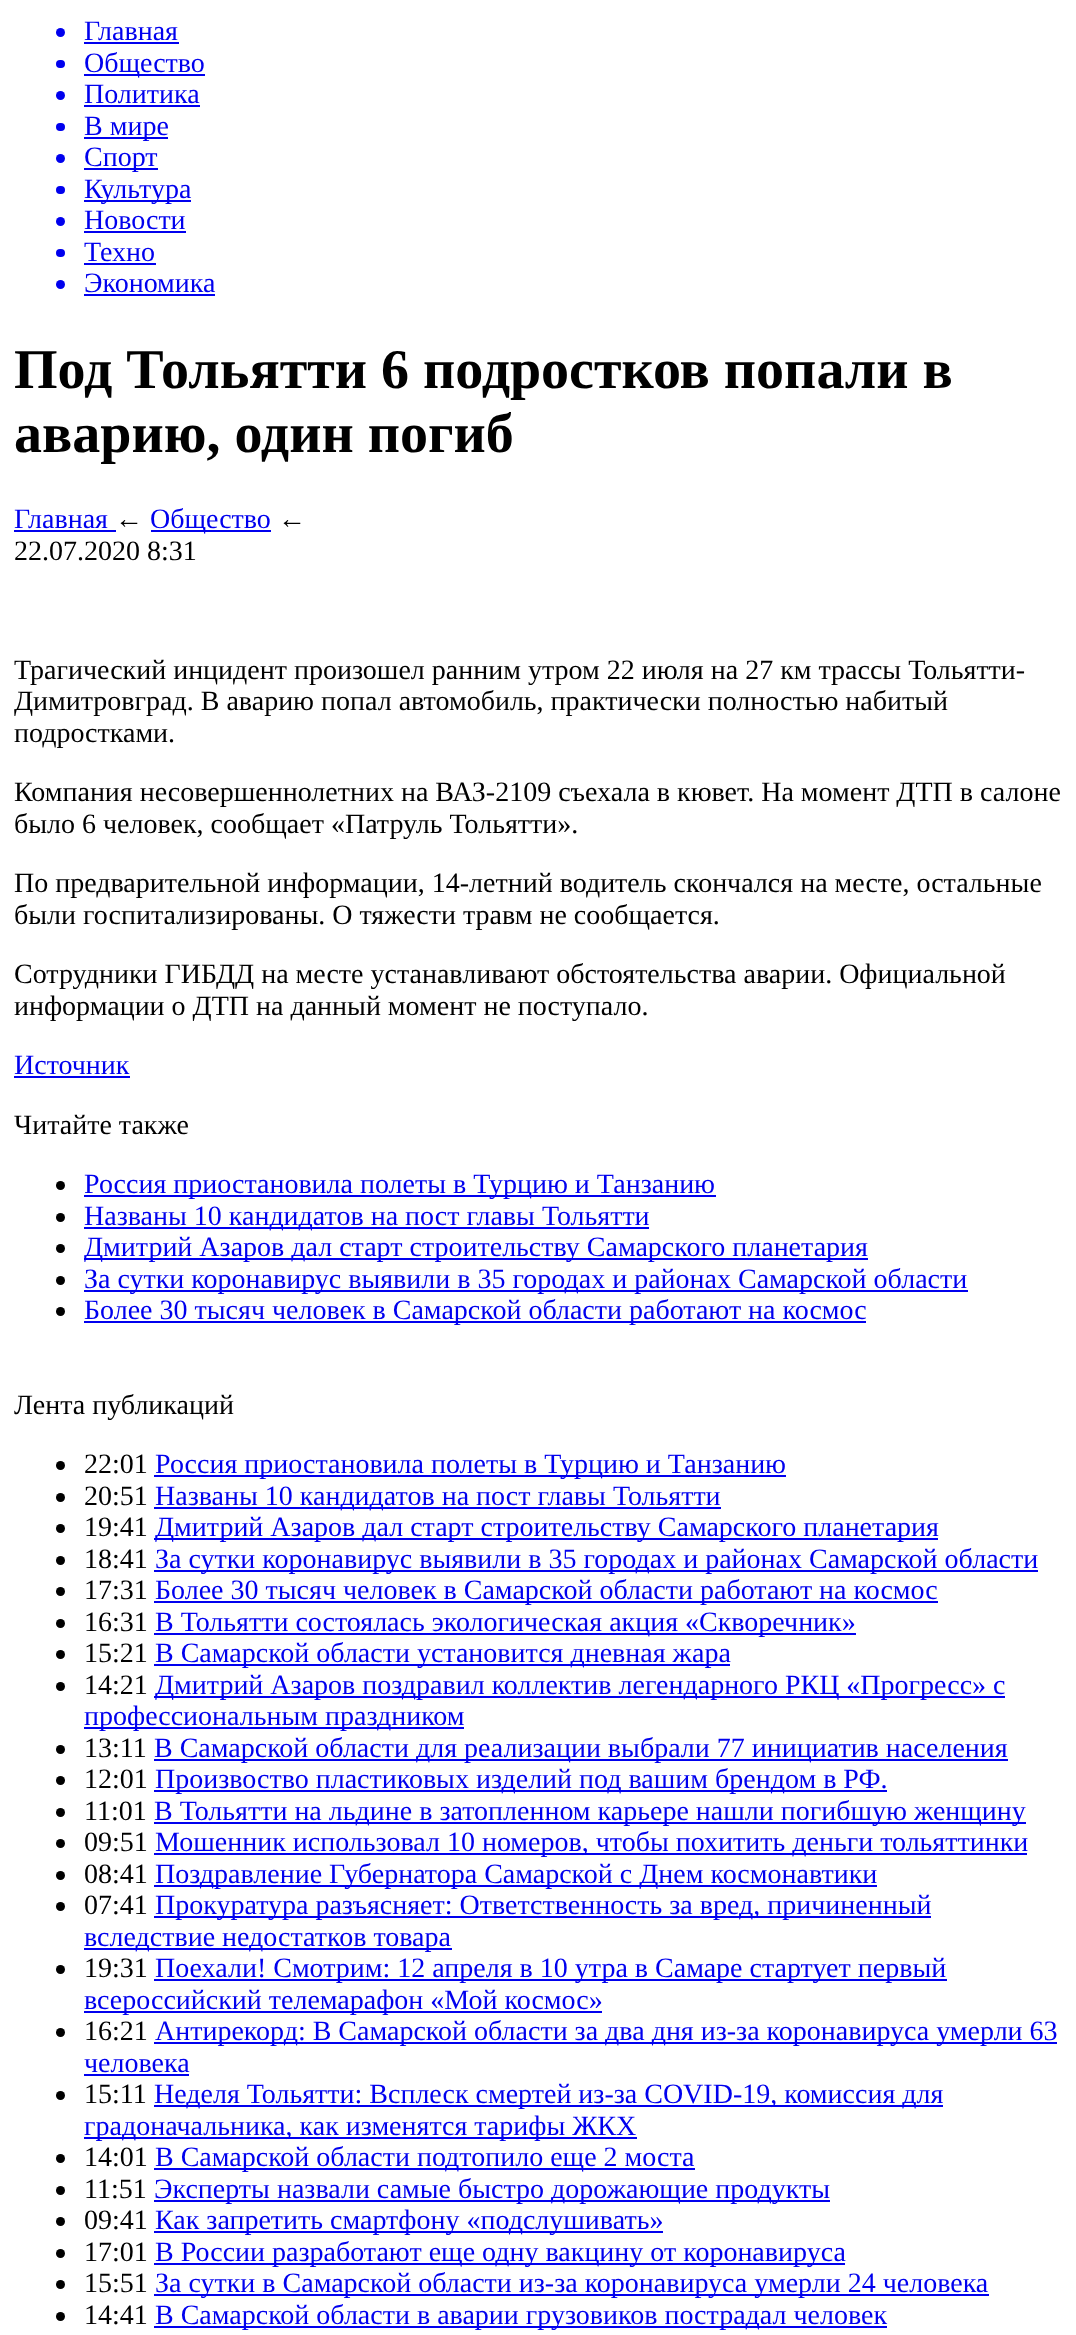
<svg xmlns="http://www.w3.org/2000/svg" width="1076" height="2335">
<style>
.a{font:28px Liberation Serif;fill:#00e}
.b{font:bold 56px Liberation Serif;fill:#000}
.c{font:28px Liberation Serif;fill:#000}
</style>
<rect width="100%" height="100%" fill="#fff"/>
<circle fill="#00e" cx="60.5" cy="32.5" r="4.5"/>
<path fill="#00e" d="M84 42h95v2H84z"/>
<rect fill="#00e" x="56" y="60" width="9" height="8" rx="4"/>
<path fill="#00e" d="M84 74h121v2H84z"/>
<circle fill="#00e" cx="60.5" cy="95.5" r="4.5"/>
<path fill="#00e" d="M84 105h116v2H84z"/>
<rect fill="#00e" x="56" y="123" width="9" height="8" rx="4"/>
<path fill="#00e" d="M84 137h84v2H84z"/>
<circle fill="#00e" cx="60.5" cy="158.5" r="4.5"/>
<path fill="#00e" d="M84 168h74v2H84z"/>
<rect fill="#00e" x="56" y="186" width="9" height="8" rx="4"/>
<path fill="#00e" d="M84 200h107v2H84z"/>
<circle fill="#00e" cx="60.5" cy="221.5" r="4.5"/>
<path fill="#00e" d="M84 231h102v2H84z"/>
<rect fill="#00e" x="56" y="249" width="9" height="8" rx="4"/>
<path fill="#00e" d="M84 263h72v2H84z"/>
<circle fill="#00e" cx="60.5" cy="284.5" r="4.5"/>
<path fill="#00e" d="M84 294h131v2H84z"/>
<path fill="#00e" d="M14 530h102v2H14z"/>
<path fill="#00e" d="M151 530h120v2H151z"/>
<path fill="#00e" d="M14 1076h116v2H14z"/>
<circle fill="#000" cx="60.5" cy="1185.5" r="4.5"/>
<path fill="#00e" d="M84 1195h632v2H84z"/>
<circle fill="#000" cx="60.5" cy="1217.5" r="4.5"/>
<path fill="#00e" d="M84 1227h565v2H84z"/>
<circle fill="#000" cx="60.5" cy="1248.5" r="4.5"/>
<path fill="#00e" d="M84 1258h784v2H84z"/>
<circle fill="#000" cx="60.5" cy="1280.5" r="4.5"/>
<path fill="#00e" d="M84 1290h884v2H84z"/>
<circle fill="#000" cx="60.5" cy="1311.5" r="4.5"/>
<path fill="#00e" d="M84 1321h782v2H84z"/>
<circle fill="#000" cx="60.5" cy="1465.5" r="4.5"/>
<path fill="#00e" d="M154 1475h632v2H154z"/>
<circle fill="#000" cx="60.5" cy="1497.5" r="4.5"/>
<path fill="#00e" d="M154 1507h567v2H154z"/>
<circle fill="#000" cx="60.5" cy="1528.5" r="4.5"/>
<path fill="#00e" d="M154 1538h784v2H154z"/>
<circle fill="#000" cx="60.5" cy="1560.5" r="4.5"/>
<path fill="#00e" d="M154 1570h884v2H154z"/>
<circle fill="#000" cx="60.5" cy="1591.5" r="4.5"/>
<path fill="#00e" d="M154 1601h784v2H154z"/>
<circle fill="#000" cx="60.5" cy="1623.5" r="4.5"/>
<path fill="#00e" d="M154 1633h702v2H154z"/>
<circle fill="#000" cx="60.5" cy="1654.5" r="4.5"/>
<path fill="#00e" d="M154 1664h576v2H154z"/>
<circle fill="#000" cx="60.5" cy="1686.5" r="4.5"/>
<path fill="#00e" d="M154 1696h851v2H154z"/>
<path fill="#00e" d="M84 1727h380v2H84z"/>
<circle fill="#000" cx="60.5" cy="1749.5" r="4.5"/>
<path fill="#00e" d="M154 1759h854v2H154z"/>
<circle fill="#000" cx="60.5" cy="1780.5" r="4.5"/>
<path fill="#00e" d="M154 1790h733v2H154z"/>
<circle fill="#000" cx="60.5" cy="1812.5" r="4.5"/>
<path fill="#00e" d="M154 1822h872v2H154z"/>
<circle fill="#000" cx="60.5" cy="1843.5" r="4.5"/>
<path fill="#00e" d="M154 1853h873v2H154z"/>
<circle fill="#000" cx="60.5" cy="1875.5" r="4.5"/>
<path fill="#00e" d="M154 1885h723v2H154z"/>
<circle fill="#000" cx="60.5" cy="1906.5" r="4.5"/>
<path fill="#00e" d="M154 1916h777v2H154z"/>
<path fill="#00e" d="M84 1948h368v2H84z"/>
<circle fill="#000" cx="60.5" cy="1969.5" r="4.5"/>
<path fill="#00e" d="M154 1979h793v2H154z"/>
<path fill="#00e" d="M84 2011h518v2H84z"/>
<circle fill="#000" cx="60.5" cy="2032.5" r="4.5"/>
<path fill="#00e" d="M154 2042h903v2H154z"/>
<path fill="#00e" d="M84 2074h105v2H84z"/>
<circle fill="#000" cx="60.5" cy="2095.5" r="4.5"/>
<path fill="#00e" d="M154 2105h789v2H154z"/>
<path fill="#00e" d="M84 2137h553v2H84z"/>
<circle fill="#000" cx="60.5" cy="2158.5" r="4.5"/>
<path fill="#00e" d="M154 2168h541v2H154z"/>
<circle fill="#000" cx="60.5" cy="2190.5" r="4.5"/>
<path fill="#00e" d="M154 2200h676v2H154z"/>
<circle fill="#000" cx="60.5" cy="2221.5" r="4.5"/>
<path fill="#00e" d="M154 2231h509v2H154z"/>
<circle fill="#000" cx="60.5" cy="2253.5" r="4.5"/>
<path fill="#00e" d="M154 2263h691v2H154z"/>
<circle fill="#000" cx="60.5" cy="2284.5" r="4.5"/>
<path fill="#00e" d="M154 2294h835v2H154z"/>
<circle fill="#000" cx="60.5" cy="2316.5" r="4.5"/>
<path fill="#00e" d="M154 2326h733v2H154z"/>
<text class="a" x="84" y="40">Главная</text>
<text class="a" x="84" y="72">Общество</text>
<text class="a" x="84" y="103">Политика</text>
<text class="a" x="84" y="135">В мире</text>
<text class="a" x="84" y="166">Спорт</text>
<text class="a" x="84" y="198">Культура</text>
<text class="a" x="84" y="229">Новости</text>
<text class="a" x="84" y="261">Техно</text>
<text class="a" x="84" y="292">Экономика</text>
<text class="b" x="14" y="388">Под Тольятти 6 подростков попали в</text>
<text class="b" x="14" y="452">аварию, один погиб</text>
<text class="a" x="14" y="528">Главная</text>
<text class="c" x="115" y="528">←</text>
<text class="a" x="150" y="528">Общество</text>
<text class="c" x="278" y="528">←</text>
<text class="c" x="14" y="560">22.07.2020 8:31</text>
<text class="c" x="14" y="679">Трагический инцидент произошел ранним утром 22 июля на 27 км трассы Тольятти-</text>
<text class="c" x="14" y="710">Димитровград. В аварию попал автомобиль, практически полностью набитый</text>
<text class="c" x="14" y="742">подростками.</text>
<text class="c" x="14" y="801">Компания несовершеннолетних на ВАЗ-2109 съехала в кювет. На момент ДТП в салоне</text>
<text class="c" x="14" y="833">было 6 человек, сообщает «Патруль Тольятти».</text>
<text class="c" x="14" y="892">По предварительной информации, 14-летний водитель скончался на месте, остальные</text>
<text class="c" x="14" y="924">были госпитализированы. О тяжести травм не сообщается.</text>
<text class="c" x="14" y="983">Сотрудники ГИБДД на месте устанавливают обстоятельства аварии. Официальной</text>
<text class="c" x="14" y="1015">информации о ДТП на данный момент не поступало.</text>
<text class="a" x="14" y="1074">Источник</text>
<text class="c" x="14" y="1134">Читайте также</text>
<text class="a" x="84" y="1193">Россия приостановила полеты в Турцию и Танзанию</text>
<text class="a" x="84" y="1225">Названы 10 кандидатов на пост главы Тольятти</text>
<text class="a" x="84" y="1256">Дмитрий Азаров дал старт строительству Самарского планетария</text>
<text class="a" x="84" y="1288">За сутки коронавирус выявили в 35 городах и районах Самарской области</text>
<text class="a" x="84" y="1319">Более 30 тысяч человек в Самарской области работают на космос</text>
<text class="c" x="14" y="1414">Лента публикаций</text>
<text class="c" x="84" y="1473">22:01</text>
<text class="a" x="155" y="1473">Россия приостановила полеты в Турцию и Танзанию</text>
<text class="c" x="84" y="1505">20:51</text>
<text class="a" x="155" y="1505">Названы 10 кандидатов на пост главы Тольятти</text>
<text class="c" x="84" y="1536">19:41</text>
<text class="a" x="155" y="1536">Дмитрий Азаров дал старт строительству Самарского планетария</text>
<text class="c" x="84" y="1568">18:41</text>
<text class="a" x="155" y="1568">За сутки коронавирус выявили в 35 городах и районах Самарской области</text>
<text class="c" x="84" y="1599">17:31</text>
<text class="a" x="155" y="1599">Более 30 тысяч человек в Самарской области работают на космос</text>
<text class="c" x="84" y="1631">16:31</text>
<text class="a" x="155" y="1631">В Тольятти состоялась экологическая акция «Скворечник»</text>
<text class="c" x="84" y="1662">15:21</text>
<text class="a" x="155" y="1662">В Самарской области установится дневная жара</text>
<text class="c" x="84" y="1694">14:21</text>
<text class="a" x="155" y="1694">Дмитрий Азаров поздравил коллектив легендарного РКЦ «Прогресс» с</text>
<text class="a" x="84" y="1725">профессиональным праздником</text>
<text class="c" x="84" y="1757">13:11</text>
<text class="a" x="154" y="1757">В Самарской области для реализации выбрали 77 инициатив населения</text>
<text class="c" x="84" y="1788">12:01</text>
<text class="a" x="155" y="1788">Произвоство пластиковых изделий под вашим брендом в РФ.</text>
<text class="c" x="84" y="1820">11:01</text>
<text class="a" x="154" y="1820">В Тольятти на льдине в затопленном карьере нашли погибшую женщину</text>
<text class="c" x="84" y="1851">09:51</text>
<text class="a" x="155" y="1851">Мошенник использовал 10 номеров, чтобы похитить деньги тольяттинки</text>
<text class="c" x="84" y="1883">08:41</text>
<text class="a" x="155" y="1883">Поздравление Губернатора Самарской с Днем космонавтики</text>
<text class="c" x="84" y="1914">07:41</text>
<text class="a" x="155" y="1914">Прокуратура разъясняет: Ответственность за вред, причиненный</text>
<text class="a" x="84" y="1946">вследствие недостатков товара</text>
<text class="c" x="84" y="1977">19:31</text>
<text class="a" x="155" y="1977">Поехали! Смотрим: 12 апреля в 10 утра в Самаре стартует первый</text>
<text class="a" x="84" y="2009">всероссийский телемарафон «Мой космос»</text>
<text class="c" x="84" y="2040">16:21</text>
<text class="a" x="155" y="2040">Антирекорд: В Самарской области за два дня из-за коронавируса умерли 63</text>
<text class="a" x="84" y="2072">человека</text>
<text class="c" x="84" y="2103">15:11</text>
<text class="a" x="154" y="2103">Неделя Тольятти: Всплеск смертей из-за COVID-19, комиссия для</text>
<text class="a" x="84" y="2135">градоначальника, как изменятся тарифы ЖКХ</text>
<text class="c" x="84" y="2166">14:01</text>
<text class="a" x="155" y="2166">В Самарской области подтопило еще 2 моста</text>
<text class="c" x="84" y="2198">11:51</text>
<text class="a" x="154" y="2198">Эксперты назвали самые быстро дорожающие продукты</text>
<text class="c" x="84" y="2229">09:41</text>
<text class="a" x="155" y="2229">Как запретить смартфону «подслушивать»</text>
<text class="c" x="84" y="2261">17:01</text>
<text class="a" x="155" y="2261">В России разработают еще одну вакцину от коронавируса</text>
<text class="c" x="84" y="2292">15:51</text>
<text class="a" x="155" y="2292">За сутки в Самарской области из-за коронавируса умерли 24 человека</text>
<text class="c" x="84" y="2324">14:41</text>
<text class="a" x="155" y="2324">В Самарской области в аварии грузовиков пострадал человек</text>
</svg>
